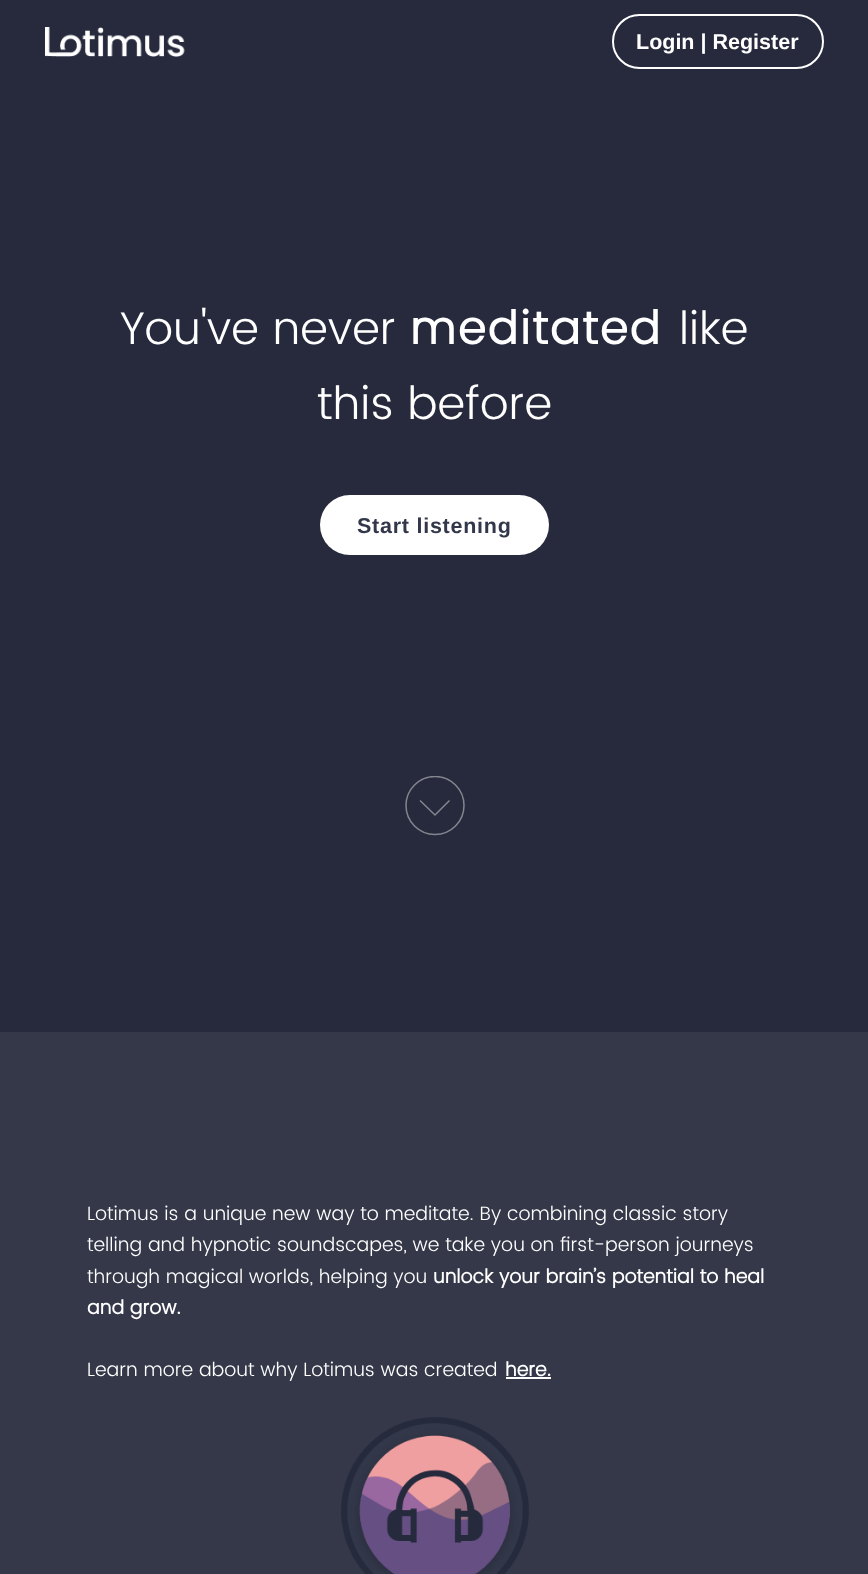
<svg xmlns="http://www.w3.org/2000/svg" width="868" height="1574">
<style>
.a{font:bold 21.5px Liberation Sans;fill:#fff}
.b{font:300 45.5px Poppins;fill:#fff}
.c{font:bold 45.5px Poppins;letter-spacing:2.25px;fill:#fff}
.d{font:bold 21.5px Liberation Sans;letter-spacing:0.75px;fill:#323749}
.e{font:300 19.2px Poppins;fill:#fff}
.f{font:bold 19.2px Poppins;fill:#fff}
</style>
<defs>
<clipPath id="clip1"><path d="M405 776h60v60H405z"/></clipPath>
</defs>
<rect width="100%" height="100%" fill="#272a3d"/>
<image href="1.png" x="45" y="27" width="140" height="30"/>
<rect fill="none" stroke="#fff" stroke-width="2" x="613" y="15" width="210" height="53" rx="26.5"/>
<rect fill="#fff" x="320" y="495" width="229" height="60" rx="30"/>
<g clip-path="url(#clip1)">
<circle fill="none" stroke="#83858f" stroke-width="1.5" cx="435" cy="805.5" r="29"/>
</g>
<path fill="none" stroke="#83858f" stroke-width="1.5" d="M420 800.5l15 14.5l14.5-14.5"/>
<path fill="#353849" d="M0 1032h868v542H0z"/>
<path fill="#fff" d="M506 1377h45v2H506z"/>
<image href="2.png" x="341" y="1417" width="188" height="157"/>
<text class="a" x="636" y="49">Login | Register</text>
<text class="b" x="120" y="344">You've never</text>
<text class="c" x="410" y="344">meditated</text>
<text class="b" x="679" y="344">like</text>
<text class="b" x="317" y="419">this before</text>
<text class="d" x="357" y="533">Start listening</text>
<text class="e" x="87" y="1220">Lotimus is a unique new way to meditate. By combining classic story</text>
<text class="e" x="87" y="1251">telling and hypnotic soundscapes, we take you on first-person journeys</text>
<text class="e" x="87" y="1283">through magical worlds, helping you</text>
<text class="f" x="433" y="1283">unlock your brain’s potential to heal</text>
<text class="f" x="87" y="1314">and grow.</text>
<text class="e" x="87" y="1376">Learn more about why Lotimus was created</text>
<text class="f" x="505" y="1376">here.</text>
</svg>
